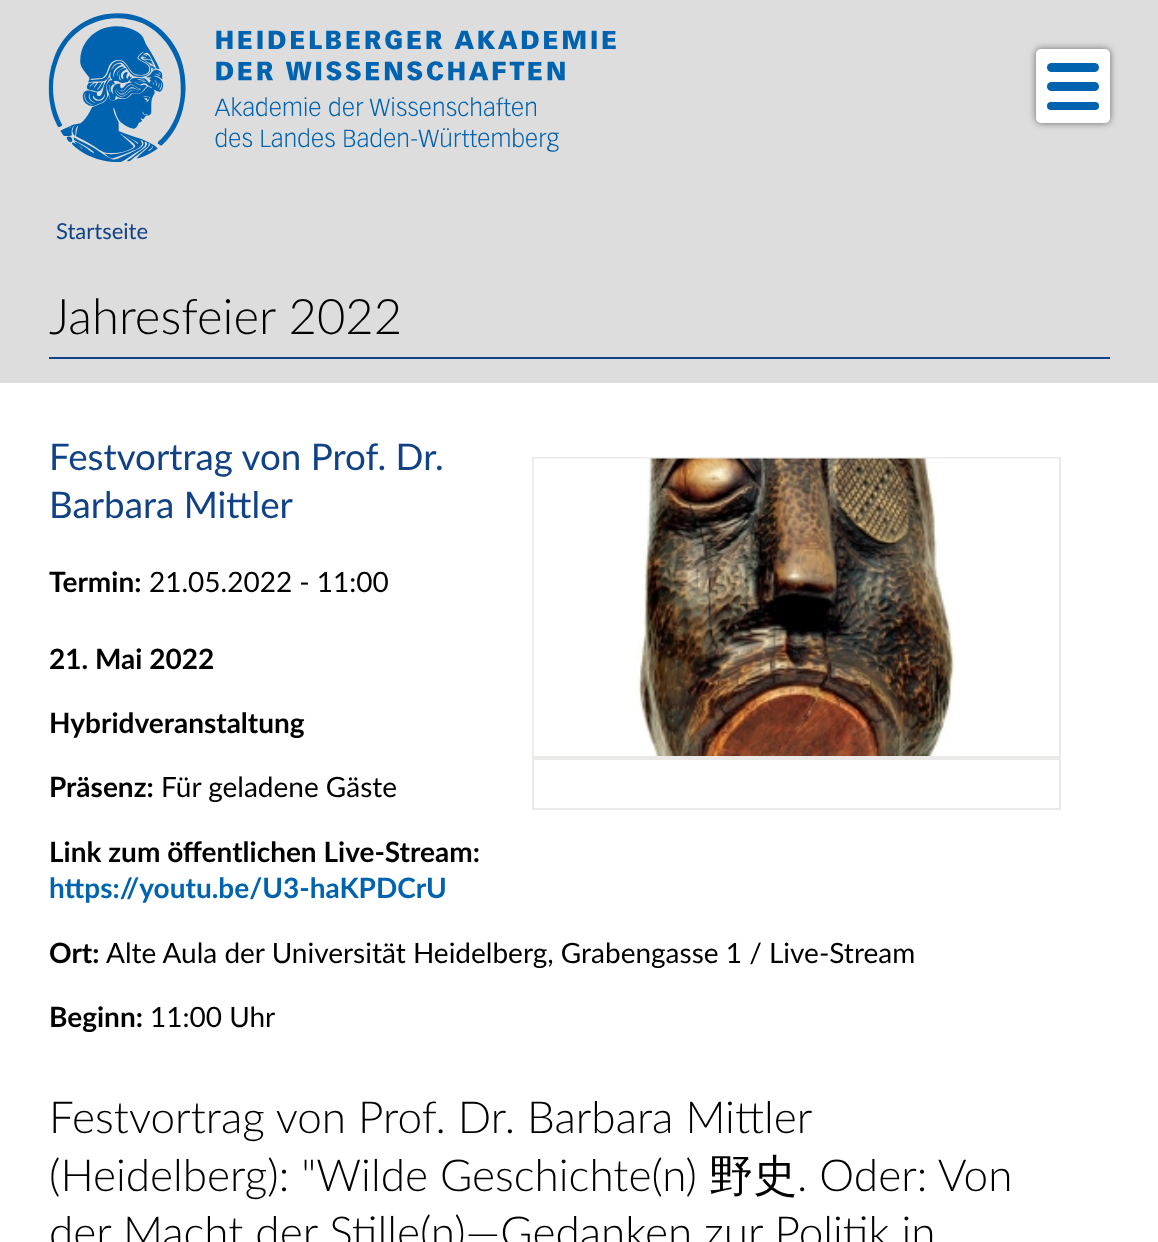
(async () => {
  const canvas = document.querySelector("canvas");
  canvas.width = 1158;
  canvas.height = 1242;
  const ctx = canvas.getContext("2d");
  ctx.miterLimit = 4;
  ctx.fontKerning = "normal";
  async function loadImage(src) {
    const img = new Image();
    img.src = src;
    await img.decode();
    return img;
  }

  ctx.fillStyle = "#dddddd";
  ctx.fillRect(0, 0, 1158, 1242);
  ctx.drawImage(await loadImage("img/1.png"), 48, 13, 568, 149);
  ctx.fillStyle = "#666666";
  ctx.filter = "blur(3.5px)";
  ctx.beginPath();
  ctx.roundRect(1036, 49, 74, 74, 5);
  ctx.fill();
  ctx.filter = "none";
  ctx.fillStyle = "#ffffff";
  ctx.beginPath();
  ctx.roundRect(1036, 49, 74, 74, 5);
  ctx.fill();
  ctx.fillStyle = "#0063af";
  ctx.beginPath();
  ctx.roundRect(1047, 63, 52, 9, 4.5);
  ctx.fill();
  ctx.beginPath();
  ctx.roundRect(1047, 82, 52, 9, 4.5);
  ctx.fill();
  ctx.beginPath();
  ctx.roundRect(1047, 102, 52, 8, 4);
  ctx.fill();
  ctx.fillStyle = "#114286";
  ctx.fillRect(49, 357, 1061, 2);
  ctx.fillStyle = "#ffffff";
  ctx.fillRect(0, 383, 1158, 859);
  ctx.strokeStyle = "#eceae8";
  ctx.lineWidth = 2;
  ctx.strokeRect(533, 458, 527, 351);
  ctx.fillStyle = "#eceae8";
  ctx.fillRect(534, 756, 525, 4);
  ctx.drawImage(await loadImage("img/2.png"), 533, 458, 526, 298);
  ctx.font = "22px Lato";
  ctx.fillStyle = "#114286";
  ctx.fillText("Startseite", 56, 239);
  ctx.font = "300 49px Lato";
  ctx.fillStyle = "#000000";
  ctx.fillText("Jahresfeier 2022", 49, 334);
  ctx.font = "36.75px Lato";
  ctx.fillStyle = "#114286";
  ctx.fillText("Festvortrag von Prof. Dr.", 49, 470);
  ctx.fillText("Barbara Mittler", 49, 518);
  ctx.font = "bold 28px Lato";
  ctx.fillStyle = "#000000";
  ctx.fillText("Termin:", 49, 592);
  ctx.font = "28px Lato";
  ctx.fillText("21.05.2022 - 11:00", 149, 592);
  ctx.font = "bold 28px Lato";
  for (const [text, x, y] of [
    ["21. Mai 2022", 49, 669],
    ["Hybridveranstaltung", 49, 733],
    ["Präsenz:", 49, 797],
  ]) {
    ctx.fillText(text, x, y);
  }
  ctx.font = "28px Lato";
  ctx.fillText("Für geladene Gäste", 161, 797);
  ctx.font = "bold 28px Lato";
  ctx.fillText("Link zum öffentlichen Live-Stream:", 49, 862);
  ctx.fillStyle = "#0063af";
  ctx.fillText("https://youtu.be/U3-haKPDCrU", 49, 898);
  ctx.fillStyle = "#000000";
  ctx.fillText("Ort:", 49, 963);
  ctx.font = "28px Lato";
  ctx.fillText("Alte Aula der Universität Heidelberg, Grabengasse 1 / Live-Stream", 106, 963);
  ctx.font = "bold 28px Lato";
  ctx.fillText("Beginn:", 49, 1027);
  ctx.font = "28px Lato";
  ctx.fillText("11:00 Uhr", 150, 1027);
  ctx.font = "300 44.1px Lato";
  ctx.fillText("Festvortrag von Prof. Dr. Barbara Mittler", 49, 1133);
  ctx.fillText("(Heidelberg): \"Wilde Geschichte(n)", 49, 1191);
  ctx.font = "500 44.1px WenQuanYi Zen Hei";
  ctx.fillText("野史", 709, 1191);
  ctx.font = "300 44.1px Lato";
  ctx.fillText(". Oder: Von", 797, 1191);
  ctx.fillText("der Macht der Stille(n)—Gedanken zur Politik in", 49, 1248);
})();
